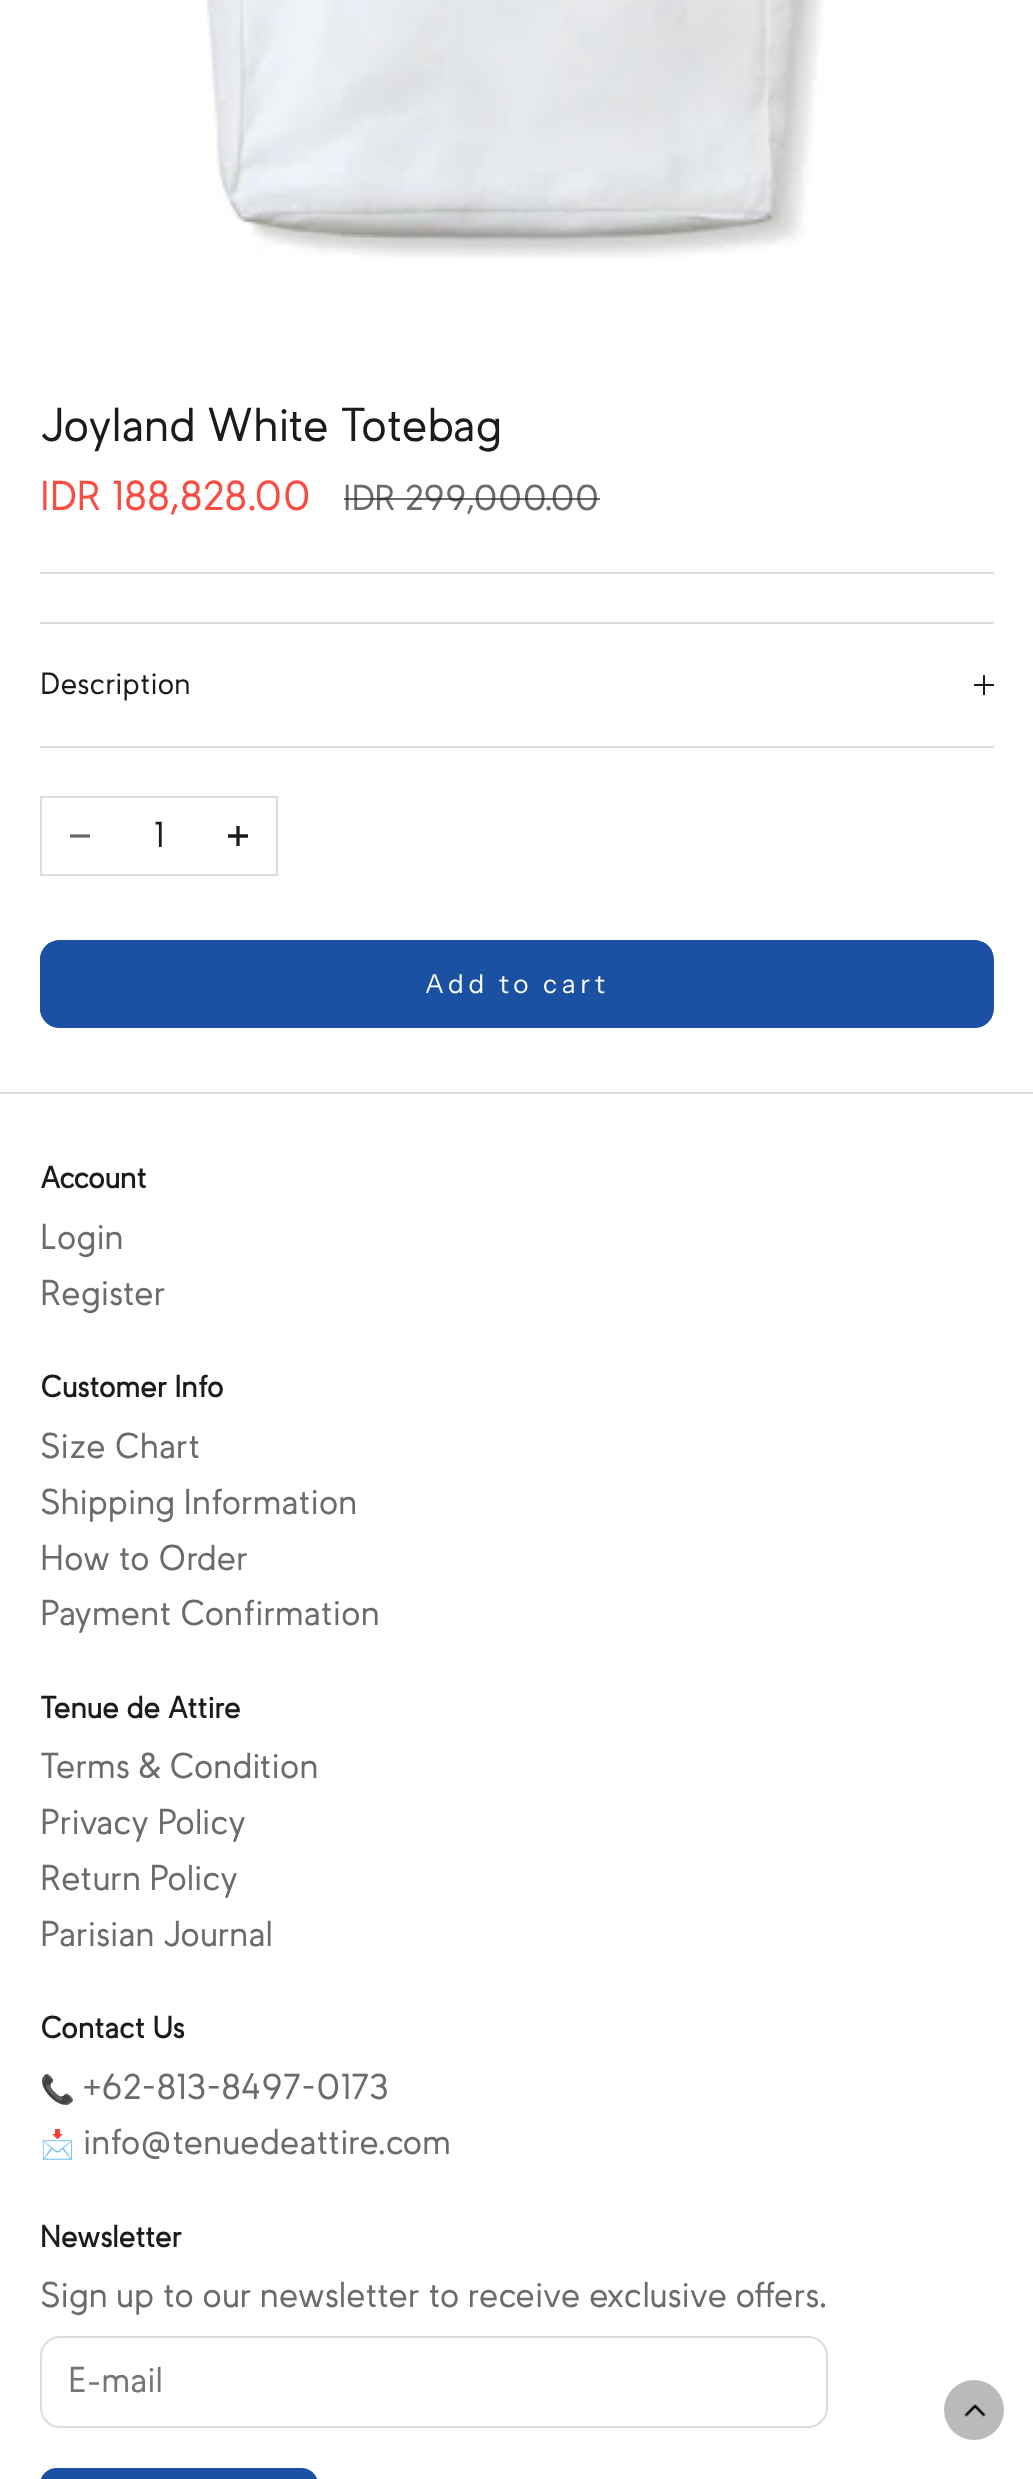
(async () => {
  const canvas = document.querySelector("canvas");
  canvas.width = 1033;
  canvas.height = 2479;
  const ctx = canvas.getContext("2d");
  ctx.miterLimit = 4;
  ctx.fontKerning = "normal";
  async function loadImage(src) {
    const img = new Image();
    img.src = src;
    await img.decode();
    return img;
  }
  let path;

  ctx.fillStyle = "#ffffff";
  ctx.fillRect(0, 0, 1033, 2479);
  ctx.drawImage(await loadImage("img/1.png"), 206, 0, 618, 259);
  for (const [x, y, w, h, color] of [
    [40, 572, 954, 2, "#dddddd"],
    [40, 622, 954, 2, "#dddddd"],
    [40, 746, 954, 2, "#dddddd"],
    [983, 675, 2, 20, "#1c1b1b"],
    [974, 684, 20, 2, "#1c1b1b"],
  ]) {
    ctx.fillStyle = color;
    ctx.fillRect(x, y, w, h);
  }
  ctx.strokeStyle = "#dddddd";
  ctx.lineWidth = 2;
  ctx.strokeRect(41, 797, 236, 78);
  path = new Path2D("M70 836H90");
  ctx.strokeStyle = "#6b6b6b";
  ctx.lineWidth = 3.3;
  ctx.stroke(path);
  path = new Path2D("M238 826V846M228 836H248");
  ctx.strokeStyle = "#1c1b1b";
  ctx.stroke(path);
  ctx.save();
  ctx.beginPath();
  ctx.roundRect(40, 940, 954, 88, 20);
  ctx.clip();
  ctx.fillStyle = "#1a51a3";
  ctx.fillRect(40, 942, 952, 84);
  ctx.restore();
  ctx.beginPath();
  ctx.roundRect(41, 941, 952, 86, 19);
  ctx.strokeStyle = "#1a51a3";
  ctx.lineWidth = 2;
  ctx.stroke();
  ctx.fillStyle = "#dddddd";
  ctx.fillRect(0, 1092, 1033, 2);
  ctx.beginPath();
  ctx.roundRect(41, 2337, 786, 90, 19);
  ctx.strokeStyle = "#dddddd";
  ctx.stroke();
  ctx.save();
  ctx.beginPath();
  ctx.roundRect(40, 2468, 278, 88, 20);
  ctx.clip();
  ctx.fillStyle = "#1a51a3";
  ctx.fillRect(42, 2470, 274, 9);
  ctx.restore();
  ctx.beginPath();
  ctx.roundRect(41, 2469, 276, 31, 19);
  ctx.strokeStyle = "#1a51a3";
  ctx.stroke();
  ctx.fillStyle = "#bababa";
  ctx.beginPath();
  ctx.arc(974, 2410, 30, 0, Math.PI * 2);
  ctx.fill();
  ctx.drawImage(await loadImage("img/2.png"), 964, 2404, 22, 13);
  ctx.font = "37.1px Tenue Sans";
  ctx.fillStyle = "#1c1b1b";
  ctx.fillText("Joyland White Totebag", 40, 441);
  ctx.font = "32.5px Tenue Sans";
  ctx.fillStyle = "#f94c43";
  ctx.fillText("IDR 188,828.00", 40, 510);
  ctx.font = "28px Tenue Sans";
  ctx.fillStyle = "#6b6b6b";
  ctx.fillText("IDR 299,000.00", 343, 510);
  ctx.fillStyle = "rgba(28, 27, 27, 0.65)";
  ctx.fillRect(344, 498, 256, 2);
  ctx.font = "24px Tenue Sans";
  ctx.fillStyle = "#1c1b1b";
  ctx.fillText("Description", 40, 694);
  ctx.font = "28px Tenue Sans";
  ctx.fillText("1", 154, 847);
  ctx.letterSpacing = "4.75px";
  ctx.font = "26px Instrument Sans";
  ctx.fillStyle = "#ffffff";
  ctx.fillText("Add to cart", 425, 993);
  ctx.letterSpacing = "0px";
  ctx.font = "bold 24px Tenue Sans";
  ctx.fillStyle = "#1c1b1b";
  ctx.fillText("Account", 40, 1188);
  ctx.font = "28px Tenue Sans";
  ctx.fillStyle = "#6b6b6b";
  ctx.fillText("Login", 40, 1249);
  ctx.fillText("Register", 40, 1305);
  ctx.font = "bold 24px Tenue Sans";
  ctx.fillStyle = "#1c1b1b";
  ctx.fillText("Customer Info", 40, 1397);
  ctx.font = "28px Tenue Sans";
  ctx.fillStyle = "#6b6b6b";
  for (const [text, x, y] of [
    ["Size Chart", 40, 1458],
    ["Shipping Information", 40, 1514],
    ["How to Order", 40, 1570],
    ["Payment Confirmation", 40, 1625],
  ]) {
    ctx.fillText(text, x, y);
  }
  ctx.font = "bold 24px Tenue Sans";
  ctx.fillStyle = "#1c1b1b";
  ctx.fillText("Tenue de Attire", 40, 1718);
  ctx.font = "28px Tenue Sans";
  ctx.fillStyle = "#6b6b6b";
  for (const [text, x, y] of [
    ["Terms & Condition", 40, 1778],
    ["Privacy Policy", 40, 1834],
    ["Return Policy", 40, 1890],
    ["Parisian Journal", 40, 1946],
  ]) {
    ctx.fillText(text, x, y);
  }
  ctx.font = "bold 24px Tenue Sans";
  ctx.fillStyle = "#1c1b1b";
  ctx.fillText("Contact Us", 40, 2038);
  ctx.font = "28px Noto Color Emoji";
  ctx.fillStyle = "#6b6b6b";
  ctx.fillText("📞", 40, 2099);
  ctx.font = "28px Tenue Sans";
  ctx.fillText("+62-813-8497-0173", 83, 2099);
  ctx.font = "28px Noto Color Emoji";
  ctx.fillText("📩", 40, 2154);
  ctx.font = "28px Tenue Sans";
  ctx.fillText("info@tenuedeattire.com", 83, 2154);
  ctx.font = "bold 24px Tenue Sans";
  ctx.fillStyle = "#1c1b1b";
  ctx.fillText("Newsletter", 40, 2247);
  ctx.font = "28px Tenue Sans";
  ctx.fillStyle = "#6b6b6b";
  ctx.fillText("Sign up to our newsletter to receive exclusive offers.", 40, 2307);
  ctx.fillStyle = "#777676";
  ctx.fillText("E-mail", 68, 2392);
})();
